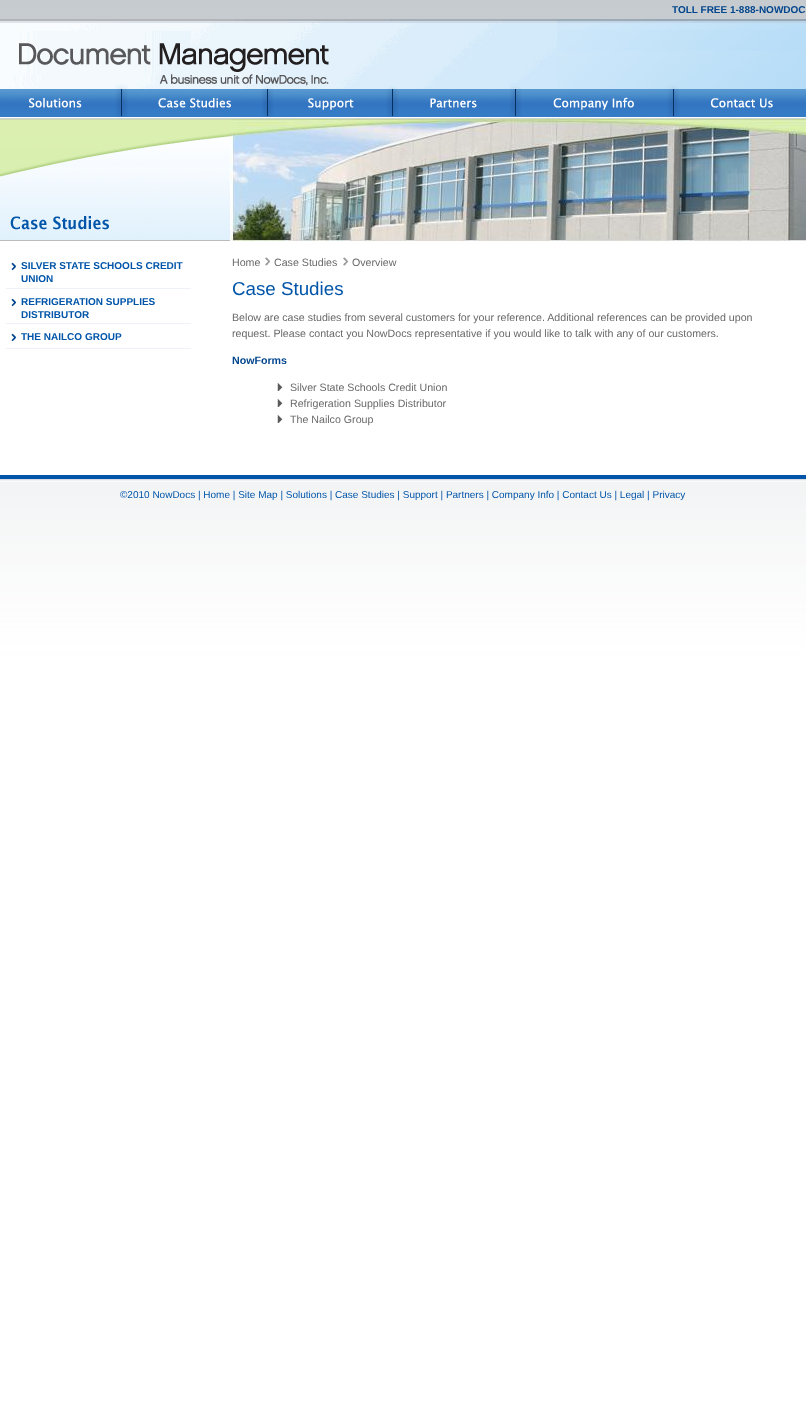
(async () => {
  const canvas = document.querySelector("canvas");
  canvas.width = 806;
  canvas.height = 1408;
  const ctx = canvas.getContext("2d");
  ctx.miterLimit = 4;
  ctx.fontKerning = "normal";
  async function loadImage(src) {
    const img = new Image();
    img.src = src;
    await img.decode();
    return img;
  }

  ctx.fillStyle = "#ffffff";
  ctx.fillRect(0, 0, 806, 1408);
  ctx.drawImage(await loadImage("img/1.png"), 0, 0, 806, 1408);
  ctx.drawImage(await loadImage("img/2.png"), 0, 19, 557, 70);
  ctx.drawImage(await loadImage("img/3.png"), 557, 19, 249, 70);
  ctx.fillRect(0, 117, 806, 1);
  ctx.drawImage(await loadImage("img/4.png"), 0, 89, 121, 28);
  ctx.drawImage(await loadImage("img/5.png"), 121, 89, 146, 28);
  ctx.drawImage(await loadImage("img/6.png"), 267, 89, 125, 28);
  ctx.drawImage(await loadImage("img/7.png"), 392, 89, 123, 28);
  ctx.drawImage(await loadImage("img/8.png"), 515, 89, 158, 28);
  ctx.drawImage(await loadImage("img/9.png"), 673, 89, 133, 28);
  ctx.drawImage(await loadImage("img/10.png"), 0, 119, 230, 85);
  ctx.drawImage(await loadImage("img/11.png"), 0, 204, 230, 37);
  ctx.drawImage(await loadImage("img/12.png"), 230, 119, 576, 122);
  ctx.fillRect(0, 241, 806, 234);
  ctx.fillStyle = "#eef2f6";
  ctx.fillRect(6, 288, 185, 1);
  ctx.drawImage(await loadImage("img/13.png"), 11, 262, 5, 9);
  ctx.fillRect(6, 323, 185, 1);
  ctx.drawImage(await loadImage("img/13.png"), 11, 298, 5, 9);
  ctx.fillRect(6, 348, 185, 1);
  ctx.drawImage(await loadImage("img/13.png"), 11, 333, 5, 9);
  ctx.drawImage(await loadImage("img/14.png"), 265, 257, 5, 9);
  ctx.drawImage(await loadImage("img/14.png"), 343, 257, 5, 9);
  ctx.drawImage(await loadImage("img/15.png"), 277, 382, 6, 9);
  ctx.drawImage(await loadImage("img/15.png"), 277, 398, 6, 9);
  ctx.drawImage(await loadImage("img/15.png"), 277, 414, 6, 9);
  ctx.drawImage(await loadImage("img/16.png"), 0, 475, 806, 7);
  ctx.font = "bold 10px Liberation Sans";
  ctx.fillStyle = "#00458d";
  ctx.fillText("TOLL FREE 1-888-NOWDOC", 672, 13);
  ctx.fillStyle = "#0055a9";
  for (const [text, x, y] of [
    ["SILVER STATE SCHOOLS CREDIT", 21, 269],
    ["UNION", 21, 282],
    ["REFRIGERATION SUPPLIES", 21, 305],
    ["DISTRIBUTOR", 21, 318],
    ["THE NAILCO GROUP", 21, 340],
  ]) {
    ctx.fillText(text, x, y);
  }
  ctx.font = "10.65px Liberation Sans";
  ctx.fillStyle = "#696969";
  for (const [text, x, y] of [
    ["Home", 232, 266],
    ["Case Studies", 274, 266],
    ["Overview", 352, 266],
  ]) {
    ctx.fillText(text, x, y);
  }
  ctx.font = "18.75px Liberation Sans";
  ctx.fillStyle = "#0055a9";
  ctx.fillText("Case Studies", 232, 295);
  ctx.font = "10.65px Liberation Sans";
  ctx.fillStyle = "#696969";
  ctx.fillText("Below are case studies from several customers for your reference. Additional references can be provided upon", 232, 321);
  ctx.fillText("request. Please contact you NowDocs representative if you would like to talk with any of our customers.", 232, 337);
  ctx.font = "bold 10.65px Liberation Sans";
  ctx.fillStyle = "#00458d";
  ctx.fillText("NowForms", 232, 364);
  ctx.font = "10.65px Liberation Sans";
  ctx.fillStyle = "#696969";
  for (const [text, x, y] of [
    ["Silver State Schools Credit Union", 290, 391],
    ["Refrigeration Supplies Distributor", 290, 407],
    ["The Nailco Group", 290, 423],
  ]) {
    ctx.fillText(text, x, y);
  }
  ctx.font = "10px Liberation Sans";
  ctx.fillStyle = "#0055a9";
  ctx.fillText("©2010 NowDocs | Home | Site Map | Solutions | Case Studies | Support | Partners | Company Info | Contact Us | Legal | Privacy", 120, 498);
})();
